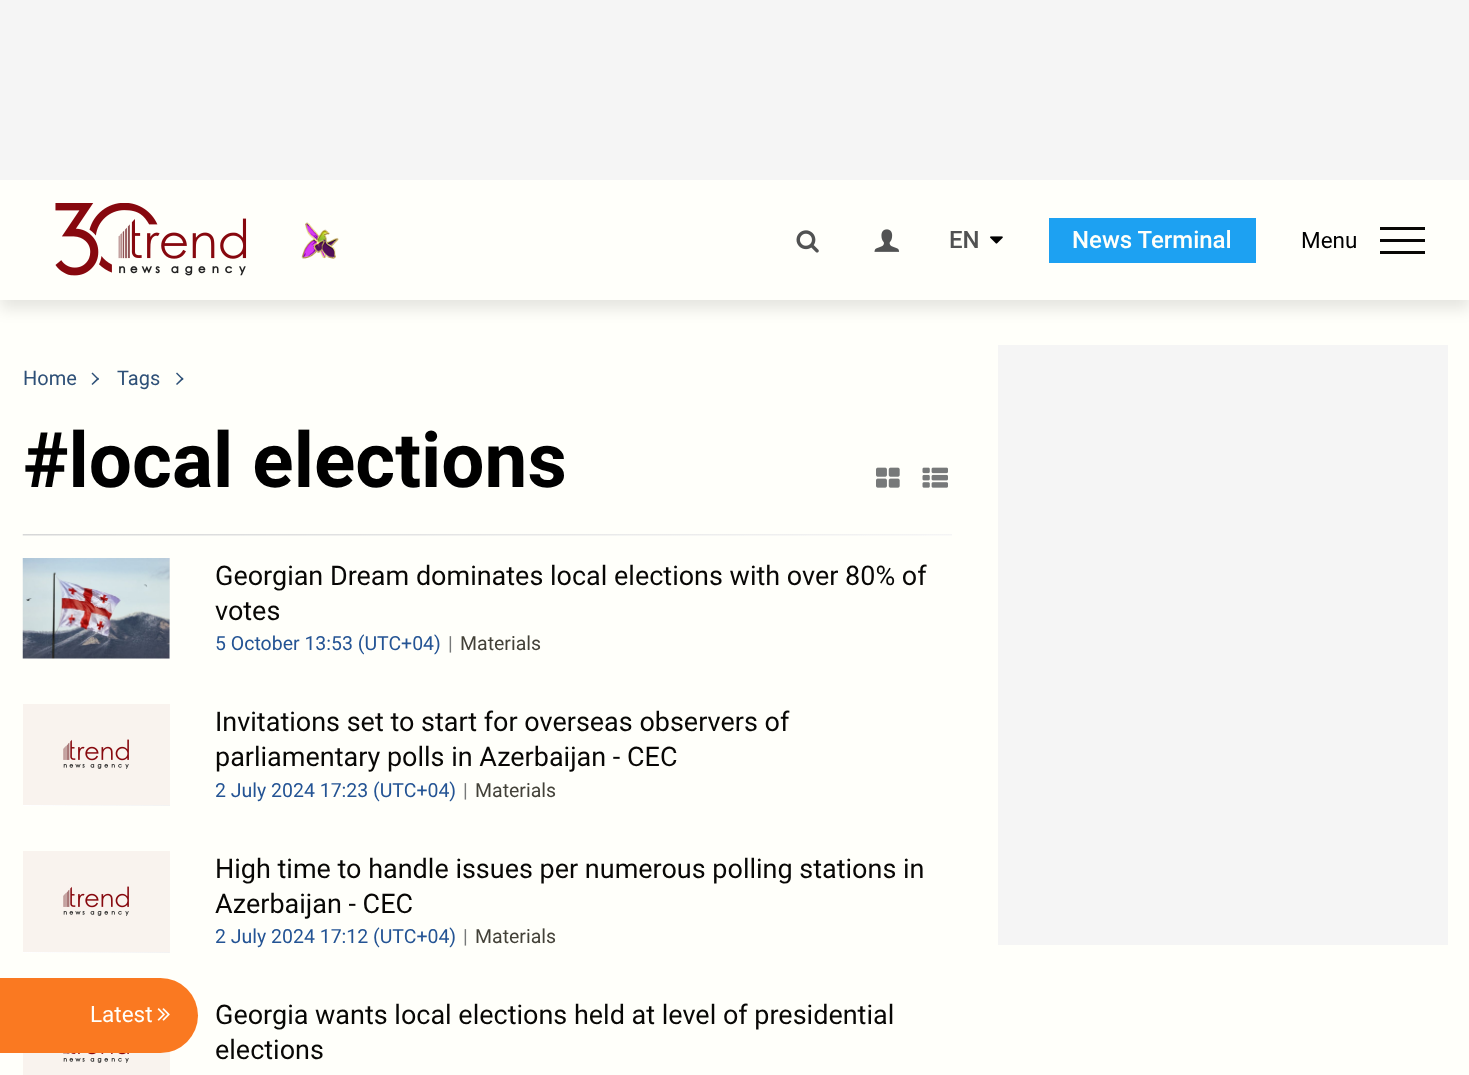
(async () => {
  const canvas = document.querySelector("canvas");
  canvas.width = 1469;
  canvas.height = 1075;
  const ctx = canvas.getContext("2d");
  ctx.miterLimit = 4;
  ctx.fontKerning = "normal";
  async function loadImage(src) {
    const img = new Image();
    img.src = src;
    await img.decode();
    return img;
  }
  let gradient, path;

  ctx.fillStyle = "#fffffa";
  ctx.fillRect(0, 0, 1469, 1075);
  ctx.fillStyle = "rgba(0, 0, 0, 0.1)";
  ctx.filter = "blur(7.5px)";
  ctx.beginPath();
  ctx.rect(0, 189, 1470, 120);
  ctx.fill();
  ctx.filter = "none";
  ctx.fillStyle = "#f5f5f5";
  ctx.fillRect(0, 0, 1469, 180);
  ctx.fillStyle = "#fffffa";
  ctx.fillRect(0, 180, 1469, 120);
  ctx.drawImage(await loadImage("img/1.png"), 55, 203, 192, 73);
  ctx.drawImage(await loadImage("img/2.png"), 301, 222, 38, 37);
  ctx.drawImage(await loadImage("img/3.png"), 796, 230, 23, 23);
  ctx.drawImage(await loadImage("img/4.png"), 874, 229, 26, 23);
  ctx.drawImage(await loadImage("img/5.png"), 990, 236, 13, 8);
  for (const [x, y, w, h, color] of [
    [1049, 218, 207, 45, "#1da1f2"],
    [1380, 227, 45, 3, "#080705"],
    [1380, 239, 45, 3, "#080705"],
    [1380, 251, 45, 3, "#080705"],
  ]) {
    ctx.fillStyle = color;
    ctx.fillRect(x, y, w, h);
  }
  ctx.fillStyle = "#2e5077";
  path = new Path2D("M92.5 372.5L99 379L98 380L91.5 373.5Z");
  ctx.fill(path);
  path = new Path2D("M98 377.5L99 379L92.5 385L91.5 384Z");
  ctx.fill(path);
  path = new Path2D("M177 372.5L183.5 379L182.5 380L176 373.5Z");
  ctx.fill(path);
  path = new Path2D("M182.5 377.5L183.5 379L177 385L176 384Z");
  ctx.fill(path);
  ctx.drawImage(await loadImage("img/6.png"), 22, 534, 930, 2);
  ctx.drawImage(await loadImage("img/7.png"), 876, 467, 24, 21);
  ctx.drawImage(await loadImage("img/8.png"), 922, 467, 26, 21);
  gradient = ctx.createLinearGradient(34, 670, 158, 546);
  gradient.addColorStop(0, "#ffffff");
  gradient.addColorStop(0.5, "#f5f5f5");
  gradient.addColorStop(1, "#e8e8e8");
  ctx.fillStyle = gradient;
  ctx.fillRect(23, 558, 147, 101);
  ctx.drawImage(await loadImage("img/9.png"), 22, 558, 148, 101);
  gradient = ctx.createLinearGradient(34, 817, 158, 692);
  gradient.addColorStop(0, "#ffffff");
  gradient.addColorStop(0.5, "#f5f5f5");
  gradient.addColorStop(1, "#e8e8e8");
  ctx.fillStyle = gradient;
  ctx.fillRect(23, 805, 147, 1);
  ctx.drawImage(await loadImage("img/10.png"), 23, 704, 147, 101);
  gradient = ctx.createLinearGradient(34, 964, 158, 839);
  gradient.addColorStop(0, "#ffffff");
  gradient.addColorStop(0.5, "#f5f5f5");
  gradient.addColorStop(1, "#e8e8e8");
  ctx.fillStyle = gradient;
  ctx.fillRect(23, 952, 147, 1);
  ctx.drawImage(await loadImage("img/10.png"), 23, 851, 147, 101);
  ctx.drawImage(await loadImage("img/11.png"), 23, 1051, 147, 24);
  ctx.fillStyle = "#f5f5f5";
  ctx.fillRect(998, 345, 450, 600);
  ctx.fillStyle = "#fa7921";
  ctx.beginPath();
  ctx.roundRect(0, 978, 198, 75, [0, 37.5, 37.5, 0]);
  ctx.fill();
  ctx.drawImage(await loadImage("img/12.png"), 157, 1008, 13, 13);
  ctx.font = "500 24px Roboto";
  ctx.fillStyle = "#515252";
  ctx.fillText("EN", 949, 248);
  ctx.fillStyle = "#fffffa";
  ctx.fillText("News Terminal", 1072, 248);
  ctx.font = "22.5px Roboto";
  ctx.fillStyle = "#000000";
  ctx.fillText("Menu", 1301, 248);
  ctx.font = "20px Roboto";
  ctx.fillStyle = "#2e5077";
  ctx.fillText("Home", 23, 385);
  ctx.fillText("Tags", 117, 385);
  ctx.font = "bold 76.5px Roboto";
  ctx.fillStyle = "#000000";
  ctx.fillText("#local elections", 23, 487);
  ctx.font = "27px Roboto";
  ctx.fillStyle = "#080705";
  ctx.fillText("Georgian Dream dominates local elections with over 80% of", 215, 585);
  ctx.fillText("votes", 215, 620);
  ctx.font = "19.5px Roboto";
  ctx.fillStyle = "#245494";
  ctx.fillText("5 October 13:53 (UTC+04)", 215, 650);
  ctx.fillStyle = "#777979";
  ctx.fillText("|", 448, 650);
  ctx.fillStyle = "#434138";
  ctx.fillText("Materials", 460, 650);
  ctx.font = "27px Roboto";
  ctx.fillStyle = "#080705";
  ctx.fillText("Invitations set to start for overseas observers of", 215, 731);
  ctx.fillText("parliamentary polls in Azerbaijan - CEC", 215, 766);
  ctx.font = "19.5px Roboto";
  ctx.fillStyle = "#245494";
  ctx.fillText("2 July 2024 17:23 (UTC+04)", 215, 797);
  ctx.fillStyle = "#777979";
  ctx.fillText("|", 463, 797);
  ctx.fillStyle = "#434138";
  ctx.fillText("Materials", 475, 797);
  ctx.font = "27px Roboto";
  ctx.fillStyle = "#080705";
  ctx.fillText("High time to handle issues per numerous polling stations in", 215, 878);
  ctx.fillText("Azerbaijan - CEC", 215, 913);
  ctx.font = "19.5px Roboto";
  ctx.fillStyle = "#245494";
  ctx.fillText("2 July 2024 17:12 (UTC+04)", 215, 943);
  ctx.fillStyle = "#777979";
  ctx.fillText("|", 463, 943);
  ctx.fillStyle = "#434138";
  ctx.fillText("Materials", 475, 943);
  ctx.font = "27px Roboto";
  ctx.fillStyle = "#080705";
  ctx.fillText("Georgia wants local elections held at level of presidential", 215, 1024);
  ctx.fillText("elections", 215, 1059);
  ctx.font = "22.5px Roboto";
  ctx.fillStyle = "#fffffa";
  ctx.fillText("Latest", 90, 1022);
})();
